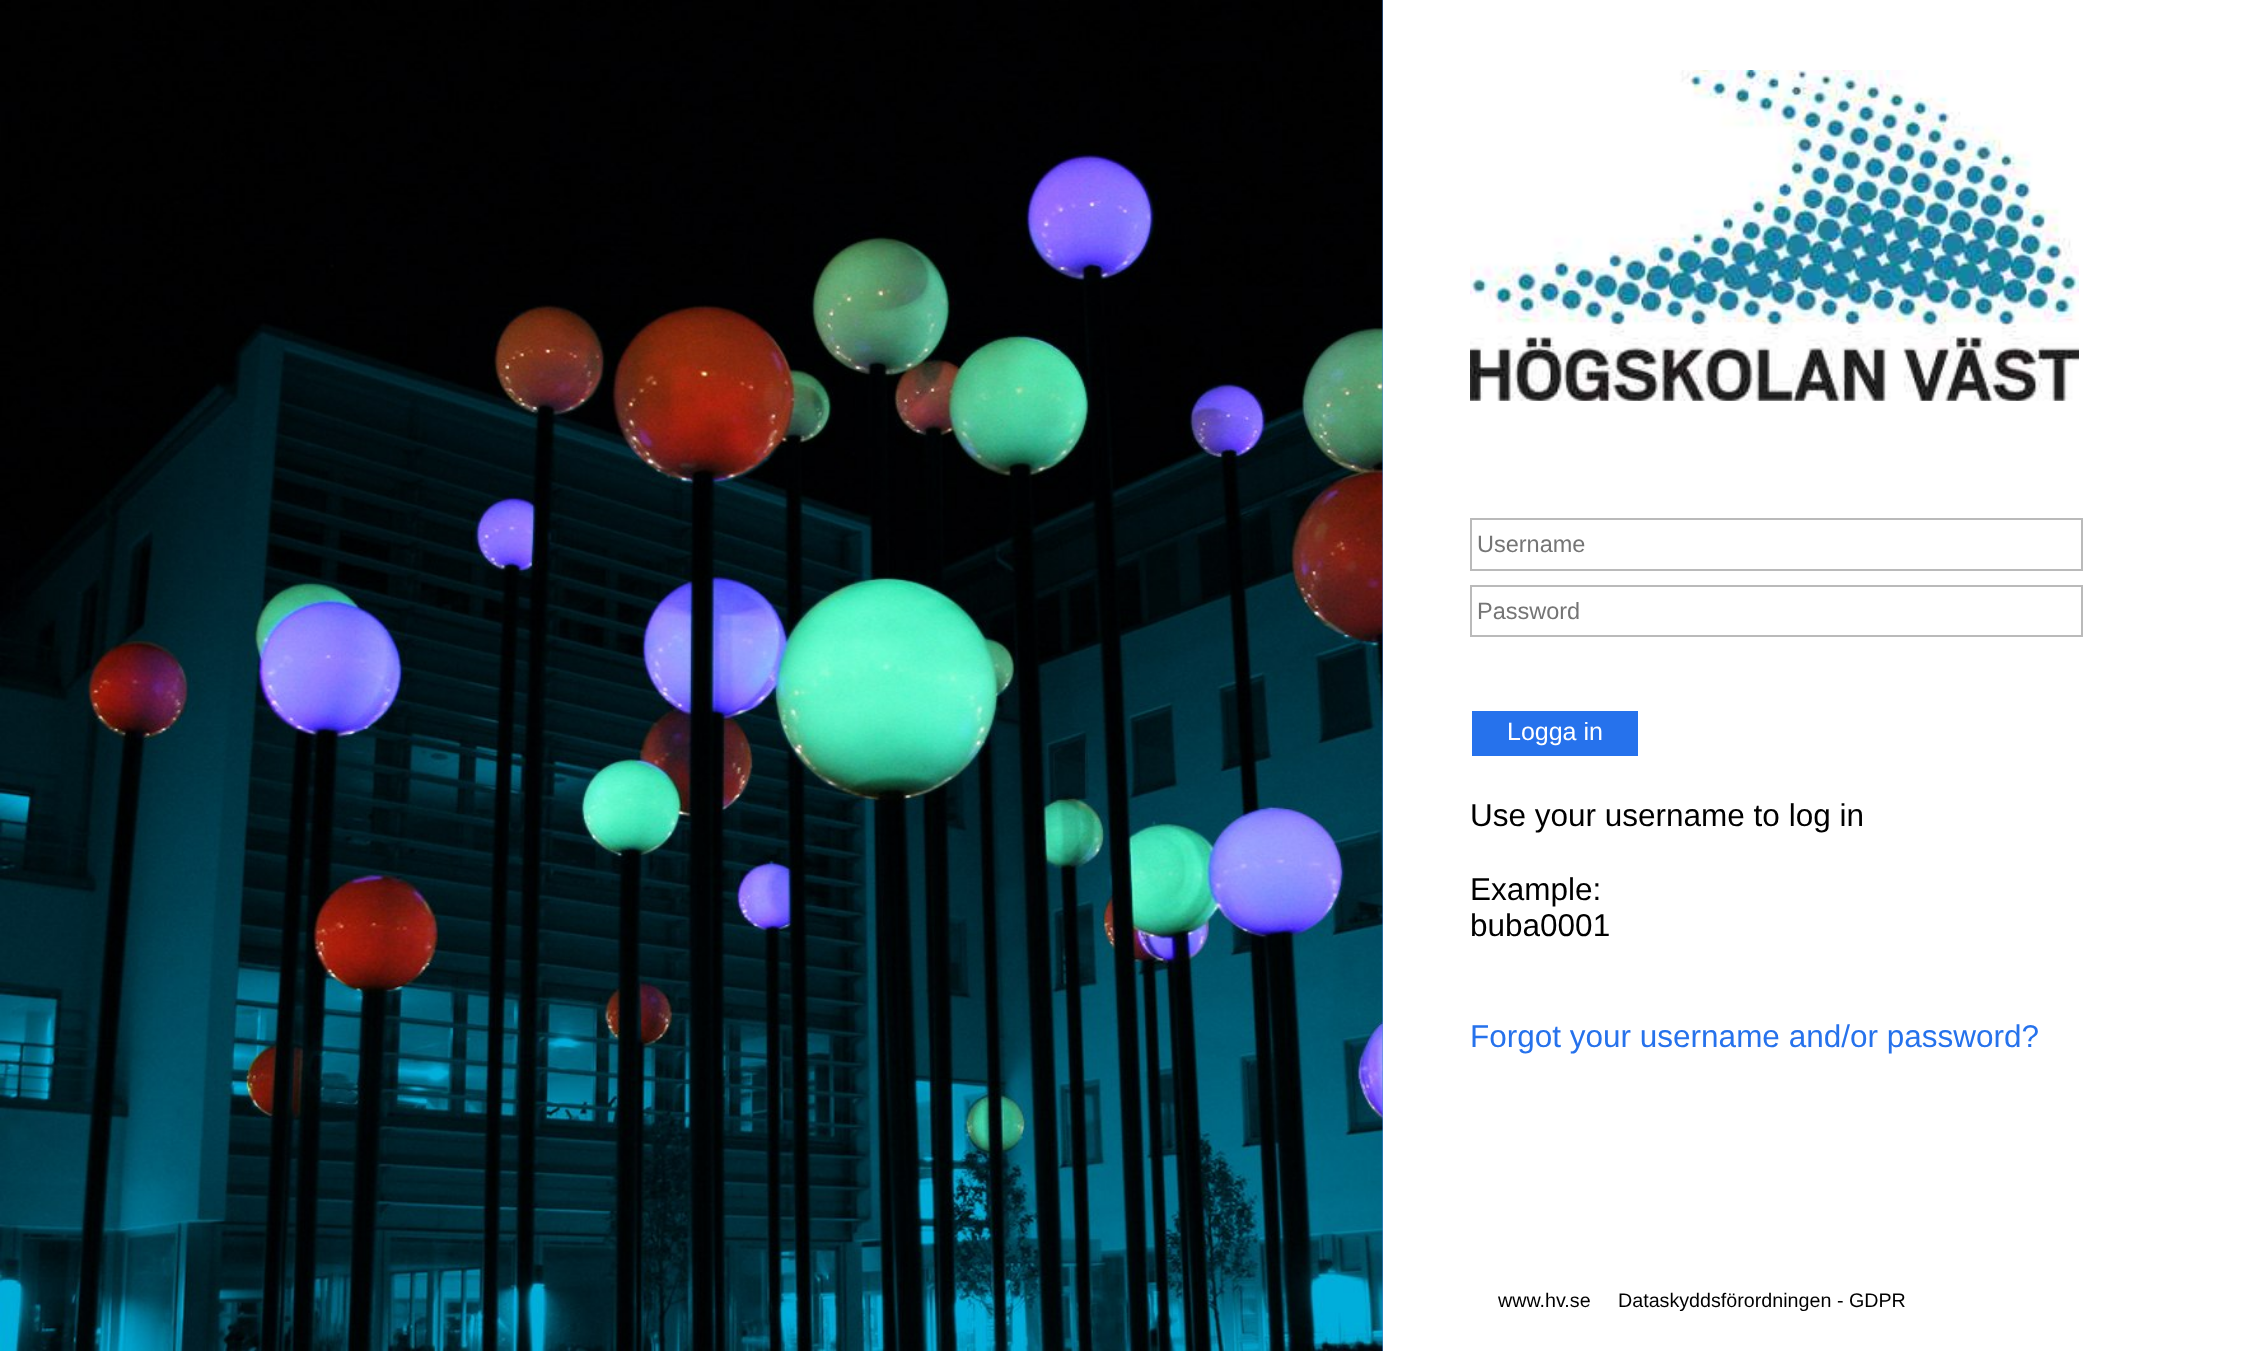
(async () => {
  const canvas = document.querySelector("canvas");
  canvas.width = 2256;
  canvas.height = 1351;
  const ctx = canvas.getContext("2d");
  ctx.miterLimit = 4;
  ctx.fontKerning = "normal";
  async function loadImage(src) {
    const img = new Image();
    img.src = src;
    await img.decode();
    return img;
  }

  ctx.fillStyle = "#4488dd";
  ctx.fillRect(0, 0, 2256, 1351);
  ctx.drawImage(await loadImage("img/1.png"), 0, 0, 1383, 1351);
  ctx.fillStyle = "#ffffff";
  ctx.fillRect(1383, 0, 873, 1351);
  ctx.drawImage(await loadImage("img/2.png"), 1470, 70, 609, 331);
  ctx.strokeStyle = "#bababa";
  ctx.lineWidth = 2;
  ctx.strokeRect(1471, 519, 611, 51);
  ctx.strokeRect(1471, 586, 611, 50);
  ctx.fillStyle = "#2672ec";
  ctx.fillRect(1472, 711, 166, 45);
  ctx.font = "23.5px Liberation Sans";
  ctx.fillStyle = "#757575";
  ctx.fillText("Username", 1477, 552);
  ctx.fillText("Password", 1477, 619);
  ctx.font = "25px Liberation Sans";
  ctx.fillStyle = "#ffffff";
  ctx.fillText("Logga in", 1507, 740);
  ctx.font = "31.5px Liberation Sans";
  ctx.fillStyle = "#000000";
  for (const [text, x, y] of [
    ["Use your username to log in", 1470, 826],
    ["Example:", 1470, 900],
    ["buba0001", 1470, 936],
  ]) {
    ctx.fillText(text, x, y);
  }
  ctx.fillStyle = "#2672ec";
  ctx.fillText("Forgot your username and/or password?", 1470, 1047);
  ctx.font = "19.7px Liberation Sans";
  ctx.fillStyle = "#000000";
  ctx.fillText("www.hv.se", 1498, 1307);
  ctx.fillText("Dataskyddsförordningen - GDPR", 1618, 1307);
})();
